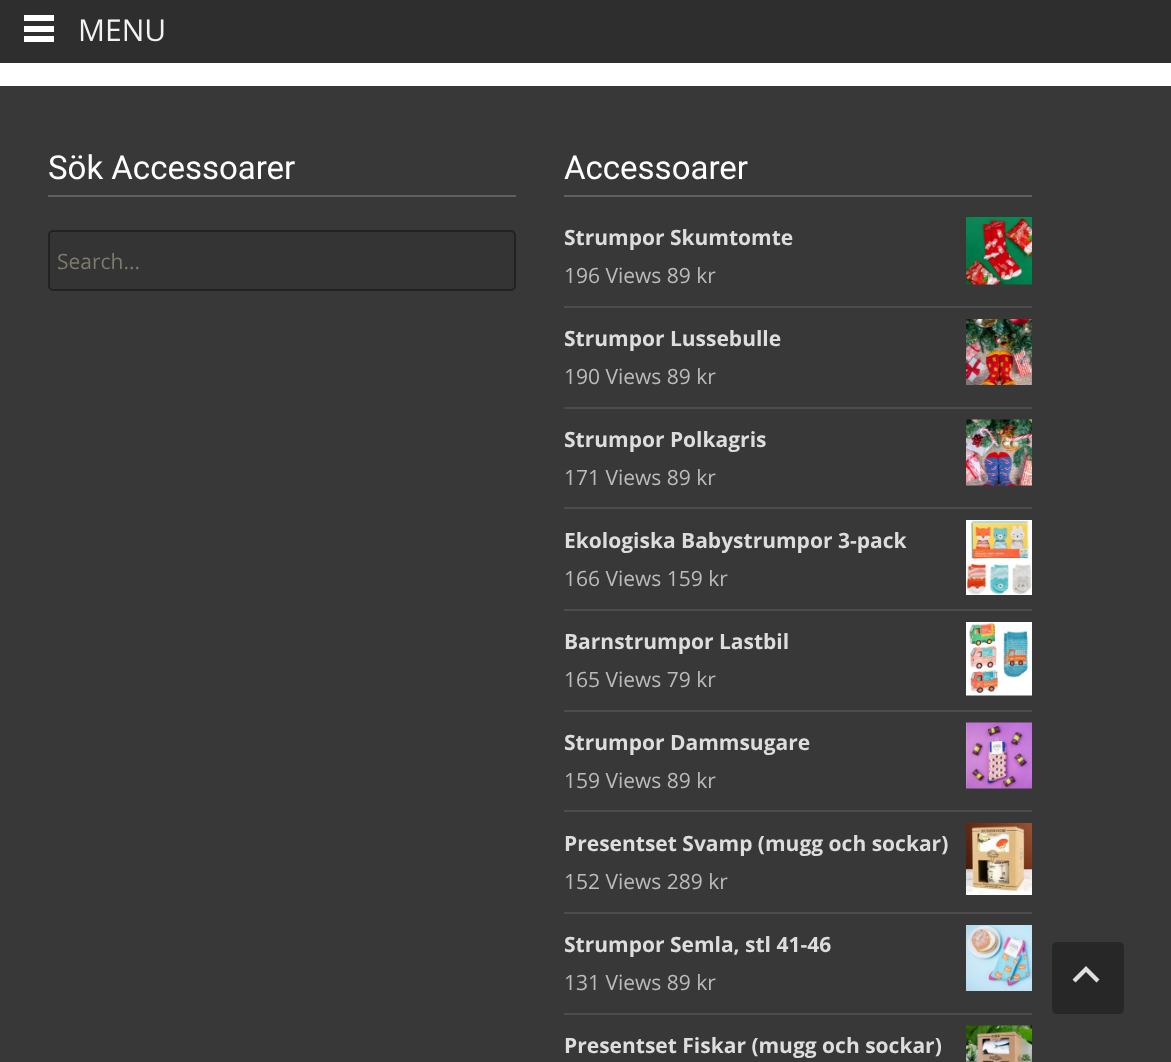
(async () => {
  const canvas = document.querySelector("canvas");
  canvas.width = 1171;
  canvas.height = 1062;
  const ctx = canvas.getContext("2d");
  ctx.miterLimit = 4;
  ctx.fontKerning = "normal";
  async function loadImage(src) {
    const img = new Image();
    img.src = src;
    await img.decode();
    return img;
  }
  let path;

  ctx.fillStyle = "#ffffff";
  ctx.fillRect(0, 0, 1171, 1062);
  for (const [x, y, w, h, color] of [
    [0, 0, 1171, 63, "#2e2e2e"],
    [24, 15, 30, 6, "#ffffff"],
    [24, 26, 30, 6, "#ffffff"],
    [24, 36, 30, 6, "#ffffff"],
    [0, 86, 1171, 976, "#383838"],
    [48, 195, 468, 2, "#606060"],
  ]) {
    ctx.fillStyle = color;
    ctx.fillRect(x, y, w, h);
  }
  ctx.fillStyle = "#343434";
  ctx.beginPath();
  ctx.roundRect(49, 231, 466, 59, 4);
  ctx.fill();
  ctx.strokeStyle = "#222222";
  ctx.lineWidth = 2;
  ctx.stroke();
  ctx.fillStyle = "#606060";
  ctx.fillRect(564, 195, 468, 2);
  ctx.fillStyle = "#4c4c4c";
  ctx.fillRect(564, 306, 468, 2);
  ctx.drawImage(await loadImage("img/1.png"), 966, 217, 66, 68);
  ctx.fillRect(564, 407, 468, 2);
  ctx.drawImage(await loadImage("img/2.png"), 966, 319, 66, 66);
  ctx.fillRect(564, 507, 468, 2);
  ctx.drawImage(await loadImage("img/3.png"), 966, 419, 66, 67);
  ctx.fillRect(564, 609, 468, 2);
  ctx.drawImage(await loadImage("img/4.png"), 966, 520, 66, 75);
  ctx.fillRect(564, 710, 468, 2);
  ctx.drawImage(await loadImage("img/5.png"), 966, 622, 66, 74);
  ctx.fillRect(564, 810, 468, 2);
  ctx.drawImage(await loadImage("img/6.png"), 966, 722, 66, 67);
  ctx.fillRect(564, 912, 468, 2);
  ctx.drawImage(await loadImage("img/7.png"), 966, 823, 66, 72);
  ctx.fillRect(564, 1013, 468, 2);
  ctx.drawImage(await loadImage("img/8.png"), 966, 925, 66, 66);
  ctx.drawImage(await loadImage("img/9.png"), 966, 1025, 66, 37);
  ctx.fillStyle = "#272727";
  ctx.beginPath();
  ctx.roundRect(1052, 942, 72, 72, 5);
  ctx.fill();
  ctx.fillStyle = "#dfdfdf";
  path = new Path2D("M1072.5 979.5L1086 966L1099.5 979.5L1096.5 982.5L1086 972L1075.5 982.5Z");
  ctx.fill(path);
  ctx.font = "30px Open Sans";
  ctx.fillStyle = "#f2f2f2";
  ctx.fillText("MENU", 78, 41);
  ctx.font = "33px Roboto";
  ctx.fillStyle = "#ffffff";
  ctx.fillText("Sök Accessoarer", 48, 179);
  ctx.font = "21px Open Sans";
  ctx.fillStyle = "#7d7b6d";
  ctx.fillText("Search...", 57, 269);
  ctx.font = "33px Roboto";
  ctx.fillStyle = "#ffffff";
  ctx.fillText("Accessoarer", 564, 179);
  ctx.font = "bold 21px Open Sans";
  ctx.fillStyle = "#dddddd";
  ctx.fillText("Strumpor Skumtomte", 564, 245);
  ctx.font = "21px Open Sans";
  ctx.fillStyle = "#bbbbbb";
  ctx.fillText("196 Views 89 kr", 564, 283);
  ctx.font = "bold 21px Open Sans";
  ctx.fillStyle = "#dddddd";
  ctx.fillText("Strumpor Lussebulle", 564, 346);
  ctx.font = "21px Open Sans";
  ctx.fillStyle = "#bbbbbb";
  ctx.fillText("190 Views 89 kr", 564, 384);
  ctx.font = "bold 21px Open Sans";
  ctx.fillStyle = "#dddddd";
  ctx.fillText("Strumpor Polkagris", 564, 447);
  ctx.font = "21px Open Sans";
  ctx.fillStyle = "#bbbbbb";
  ctx.fillText("171 Views 89 kr", 564, 485);
  ctx.font = "bold 21px Open Sans";
  ctx.fillStyle = "#dddddd";
  ctx.fillText("Ekologiska Babystrumpor 3-pack", 564, 548);
  ctx.font = "21px Open Sans";
  ctx.fillStyle = "#bbbbbb";
  ctx.fillText("166 Views 159 kr", 564, 586);
  ctx.font = "bold 21px Open Sans";
  ctx.fillStyle = "#dddddd";
  ctx.fillText("Barnstrumpor Lastbil", 564, 649);
  ctx.font = "21px Open Sans";
  ctx.fillStyle = "#bbbbbb";
  ctx.fillText("165 Views 79 kr", 564, 687);
  ctx.font = "bold 21px Open Sans";
  ctx.fillStyle = "#dddddd";
  ctx.fillText("Strumpor Dammsugare", 564, 750);
  ctx.font = "21px Open Sans";
  ctx.fillStyle = "#bbbbbb";
  ctx.fillText("159 Views 89 kr", 564, 788);
  ctx.font = "bold 21px Open Sans";
  ctx.fillStyle = "#dddddd";
  ctx.fillText("Presentset Svamp (mugg och sockar)", 564, 851);
  ctx.font = "21px Open Sans";
  ctx.fillStyle = "#bbbbbb";
  ctx.fillText("152 Views 289 kr", 564, 889);
  ctx.font = "bold 21px Open Sans";
  ctx.fillStyle = "#dddddd";
  ctx.fillText("Strumpor Semla, stl 41-46", 564, 952);
  ctx.font = "21px Open Sans";
  ctx.fillStyle = "#bbbbbb";
  ctx.fillText("131 Views 89 kr", 564, 990);
  ctx.font = "bold 21px Open Sans";
  ctx.fillStyle = "#dddddd";
  ctx.fillText("Presentset Fiskar (mugg och sockar)", 564, 1053);
})();
